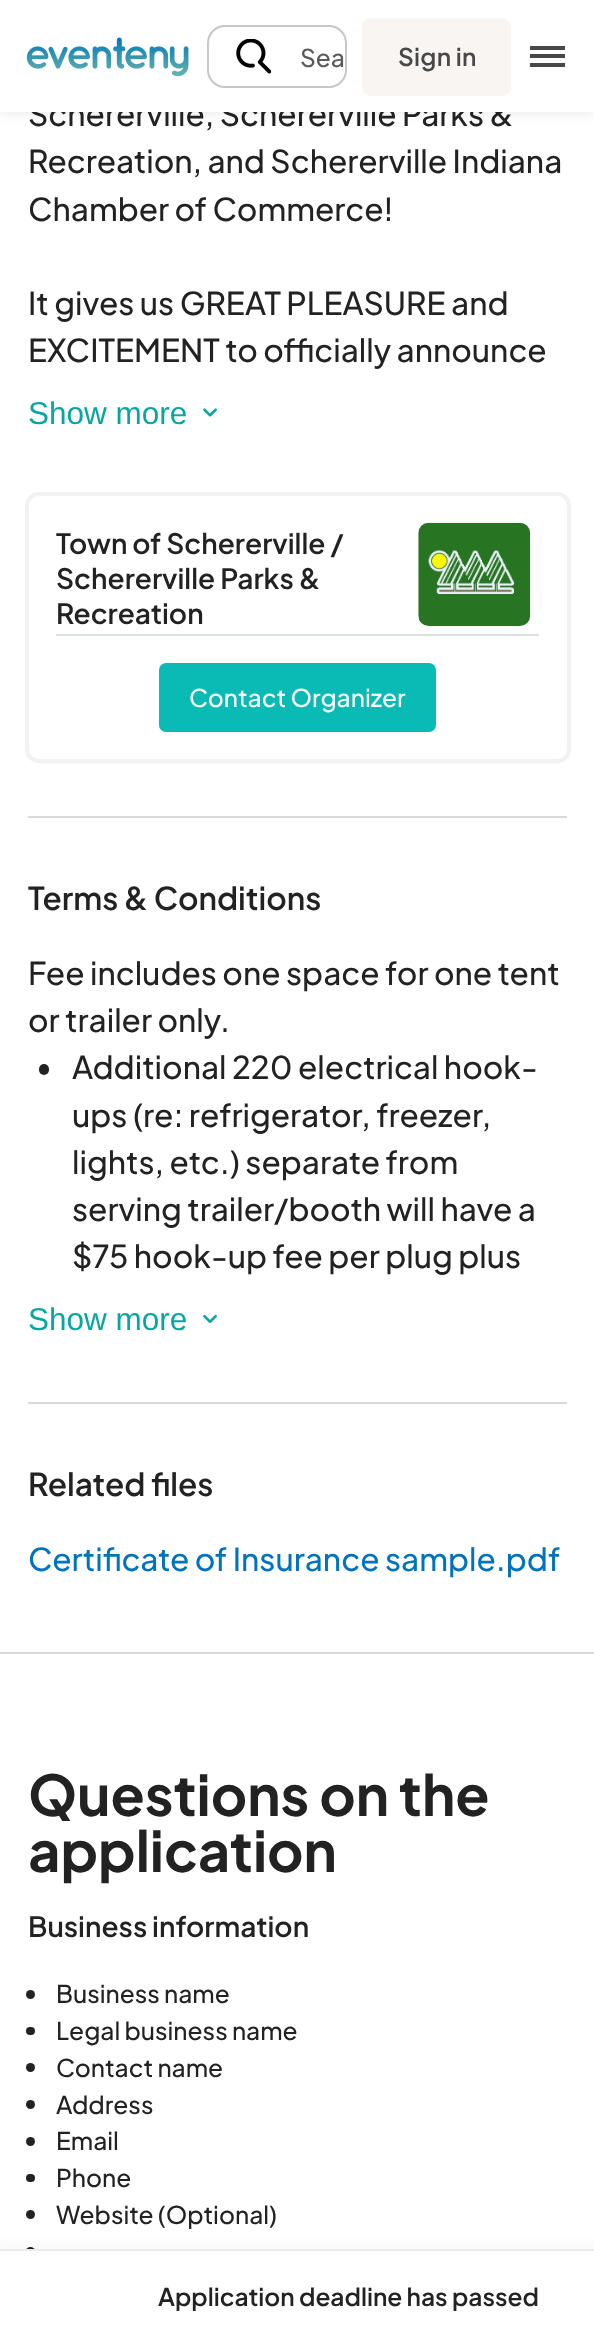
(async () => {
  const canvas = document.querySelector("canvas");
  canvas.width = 594;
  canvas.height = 2340;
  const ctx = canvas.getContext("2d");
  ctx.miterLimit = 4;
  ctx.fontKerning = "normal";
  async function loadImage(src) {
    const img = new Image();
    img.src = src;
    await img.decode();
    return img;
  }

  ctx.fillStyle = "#ffffff";
  ctx.fillRect(0, 0, 594, 2340);
  ctx.fillStyle = "rgba(0, 0, 0, 0.1)";
  ctx.filter = "blur(7px)";
  ctx.beginPath();
  ctx.rect(0, 0, 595, 112);
  ctx.fill();
  ctx.filter = "none";
  ctx.drawImage(await loadImage("img/3.png"), 203, 408, 14, 9);
  ctx.beginPath();
  ctx.roundRect(27, 494, 542, 267, 12);
  ctx.strokeStyle = "#f2f2f2";
  ctx.lineWidth = 4;
  ctx.stroke();
  ctx.drawImage(await loadImage("img/4.png"), 418, 522, 113, 104);
  ctx.fillStyle = "#dce0e0";
  ctx.fillRect(56, 634, 483, 2);
  ctx.fillStyle = "#0abab5";
  ctx.beginPath();
  ctx.roundRect(160, 664, 275, 67, 6);
  ctx.fill();
  ctx.strokeStyle = "#0abab5";
  ctx.lineWidth = 2;
  ctx.stroke();
  ctx.fillStyle = "#d9d9d9";
  ctx.fillRect(28, 816, 539, 2);
  ctx.fillStyle = "#222222";
  ctx.beginPath();
  ctx.roundRect(39, 1064, 10, 11, 5);
  ctx.fill();
  ctx.drawImage(await loadImage("img/5.png"), 203, 1314, 14, 10);
  ctx.fillStyle = "#d9d9d9";
  ctx.fillRect(28, 1402, 539, 2);
  ctx.fillRect(0, 1652, 594, 2);
  ctx.fillStyle = "#222222";
  ctx.beginPath();
  ctx.arc(30.5, 1994.5, 4.5, 0, Math.PI * 2);
  ctx.fill();
  ctx.beginPath();
  ctx.roundRect(26, 2027, 9, 8, 4);
  ctx.fill();
  ctx.beginPath();
  ctx.arc(30.5, 2067.5, 4.5, 0, Math.PI * 2);
  ctx.fill();
  ctx.beginPath();
  ctx.arc(30.5, 2104.5, 4.5, 0, Math.PI * 2);
  ctx.fill();
  ctx.beginPath();
  ctx.arc(30.5, 2141.5, 4.5, 0, Math.PI * 2);
  ctx.fill();
  ctx.beginPath();
  ctx.roundRect(26, 2174, 9, 8, 4);
  ctx.fill();
  ctx.beginPath();
  ctx.arc(30.5, 2214.5, 4.5, 0, Math.PI * 2);
  ctx.fill();
  ctx.beginPath();
  ctx.arc(30.5, 2251.5, 4.5, 0, Math.PI * 2);
  ctx.fill();
  ctx.fillStyle = "rgba(0, 0, 0, 0.05)";
  ctx.filter = "blur(8px)";
  ctx.beginPath();
  ctx.rect(-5, 2249, 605, 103);
  ctx.fill();
  ctx.filter = "none";
  ctx.fillStyle = "#ffffff";
  ctx.fillRect(0, 2251, 594, 89);
  ctx.fillStyle = "#ebebeb";
  ctx.fillRect(0, 2249, 594, 2);
  ctx.font = "500 31.5px Plus Jakarta Sans";
  ctx.fillStyle = "#222222";
  ctx.fillText("Schererville, Schererville Parks &", 28, 126);
  for (const [x, y, w, h, color] of [
    [0, 0, 594, 112, "#ffffff"],
    [530, 46, 35, 4, "#484848"],
    [530, 63, 35, 4, "#484848"],
    [530, 54, 35, 4, "#484848"],
  ]) {
    ctx.fillStyle = color;
    ctx.fillRect(x, y, w, h);
  }
  ctx.fillStyle = "#f8f5f2";
  ctx.beginPath();
  ctx.roundRect(362, 18, 149, 78, 9);
  ctx.fill();
  ctx.letterSpacing = "0.25px";
  ctx.font = "600 24.5px Plus Jakarta Sans";
  ctx.fillStyle = "#484848";
  ctx.fillText("Sign in", 398, 66);
  ctx.beginPath();
  ctx.roundRect(208, 26, 138, 61, 17);
  ctx.strokeStyle = "#c7c7c7";
  ctx.stroke();
  ctx.letterSpacing = "0px";
  ctx.font = "500 24.5px Plus Jakarta Sans";
  ctx.fillStyle = "#595959";
  ctx.fillText("Sea", 300, 67);
  ctx.drawImage(await loadImage("img/2.png"), 236, 39, 35, 35);
  ctx.drawImage(await loadImage("img/1.png"), 26, 37, 163, 40);
  ctx.font = "500 31.5px Plus Jakarta Sans";
  ctx.fillStyle = "#222222";
  for (const [text, x, y] of [
    ["Recreation, and Schererville Indiana", 28, 173],
    ["Chamber of Commerce!", 28, 221],
    ["It gives us GREAT PLEASURE and", 28, 315],
    ["EXCITEMENT to officially announce", 28, 362],
  ]) {
    ctx.fillText(text, x, y);
  }
  ctx.font = "31.5px Liberation Sans";
  ctx.fillStyle = "#08a6a0";
  ctx.fillText("Show more", 28, 424);
  ctx.font = "600 28px Plus Jakarta Sans";
  ctx.fillStyle = "#222222";
  for (const [text, x, y] of [
    ["Town of Schererville /", 56, 554],
    ["Schererville Parks &", 56, 589],
    ["Recreation", 56, 624],
  ]) {
    ctx.fillText(text, x, y);
  }
  ctx.font = "500 24.5px Plus Jakarta Sans";
  ctx.fillStyle = "#ffffff";
  ctx.fillText("Contact Organizer", 189, 707);
  ctx.font = "600 31.5px Plus Jakarta Sans";
  ctx.fillStyle = "#222222";
  ctx.fillText("Terms & Conditions", 28, 910);
  ctx.font = "500 31.5px Plus Jakarta Sans";
  for (const [text, x, y] of [
    ["Fee includes one space for one tent", 28, 985],
    ["or trailer only.", 28, 1032],
    ["Additional 220 electrical hook-", 72, 1079],
    ["ups (re: refrigerator, freezer,", 72, 1127],
    ["lights, etc.) separate from", 72, 1174],
    ["serving trailer/booth will have a", 72, 1221],
    ["$75 hook-up fee per plug plus", 72, 1268],
  ]) {
    ctx.fillText(text, x, y);
  }
  ctx.font = "31.5px Liberation Sans";
  ctx.fillStyle = "#08a6a0";
  ctx.fillText("Show more", 28, 1330);
  ctx.font = "600 31.5px Plus Jakarta Sans";
  ctx.fillStyle = "#222222";
  ctx.fillText("Related files", 28, 1496);
  ctx.font = "500 31.5px Plus Jakarta Sans";
  ctx.fillStyle = "#0073bd";
  ctx.fillText("Certificate of Insurance sample.pdf", 28, 1571);
  ctx.font = "bold 56px Plus Jakarta Sans";
  ctx.fillStyle = "#222222";
  ctx.fillText("Questions on the", 28, 1816);
  ctx.fillText("application", 28, 1872);
  ctx.font = "600 28px Plus Jakarta Sans";
  ctx.fillText("Business information", 28, 1937);
  ctx.font = "500 24.5px Plus Jakarta Sans";
  for (const [text, x, y] of [
    ["Business name", 56, 2003],
    ["Legal business name", 56, 2040],
    ["Contact name", 56, 2077],
    ["Address", 56, 2114],
    ["Email", 56, 2150],
    ["Phone", 56, 2187],
    ["Website (Optional)", 56, 2224],
  ]) {
    ctx.fillText(text, x, y);
  }
  ctx.font = "600 24.5px Plus Jakarta Sans";
  ctx.fillText("Application deadline has passed", 158, 2306);
})();
